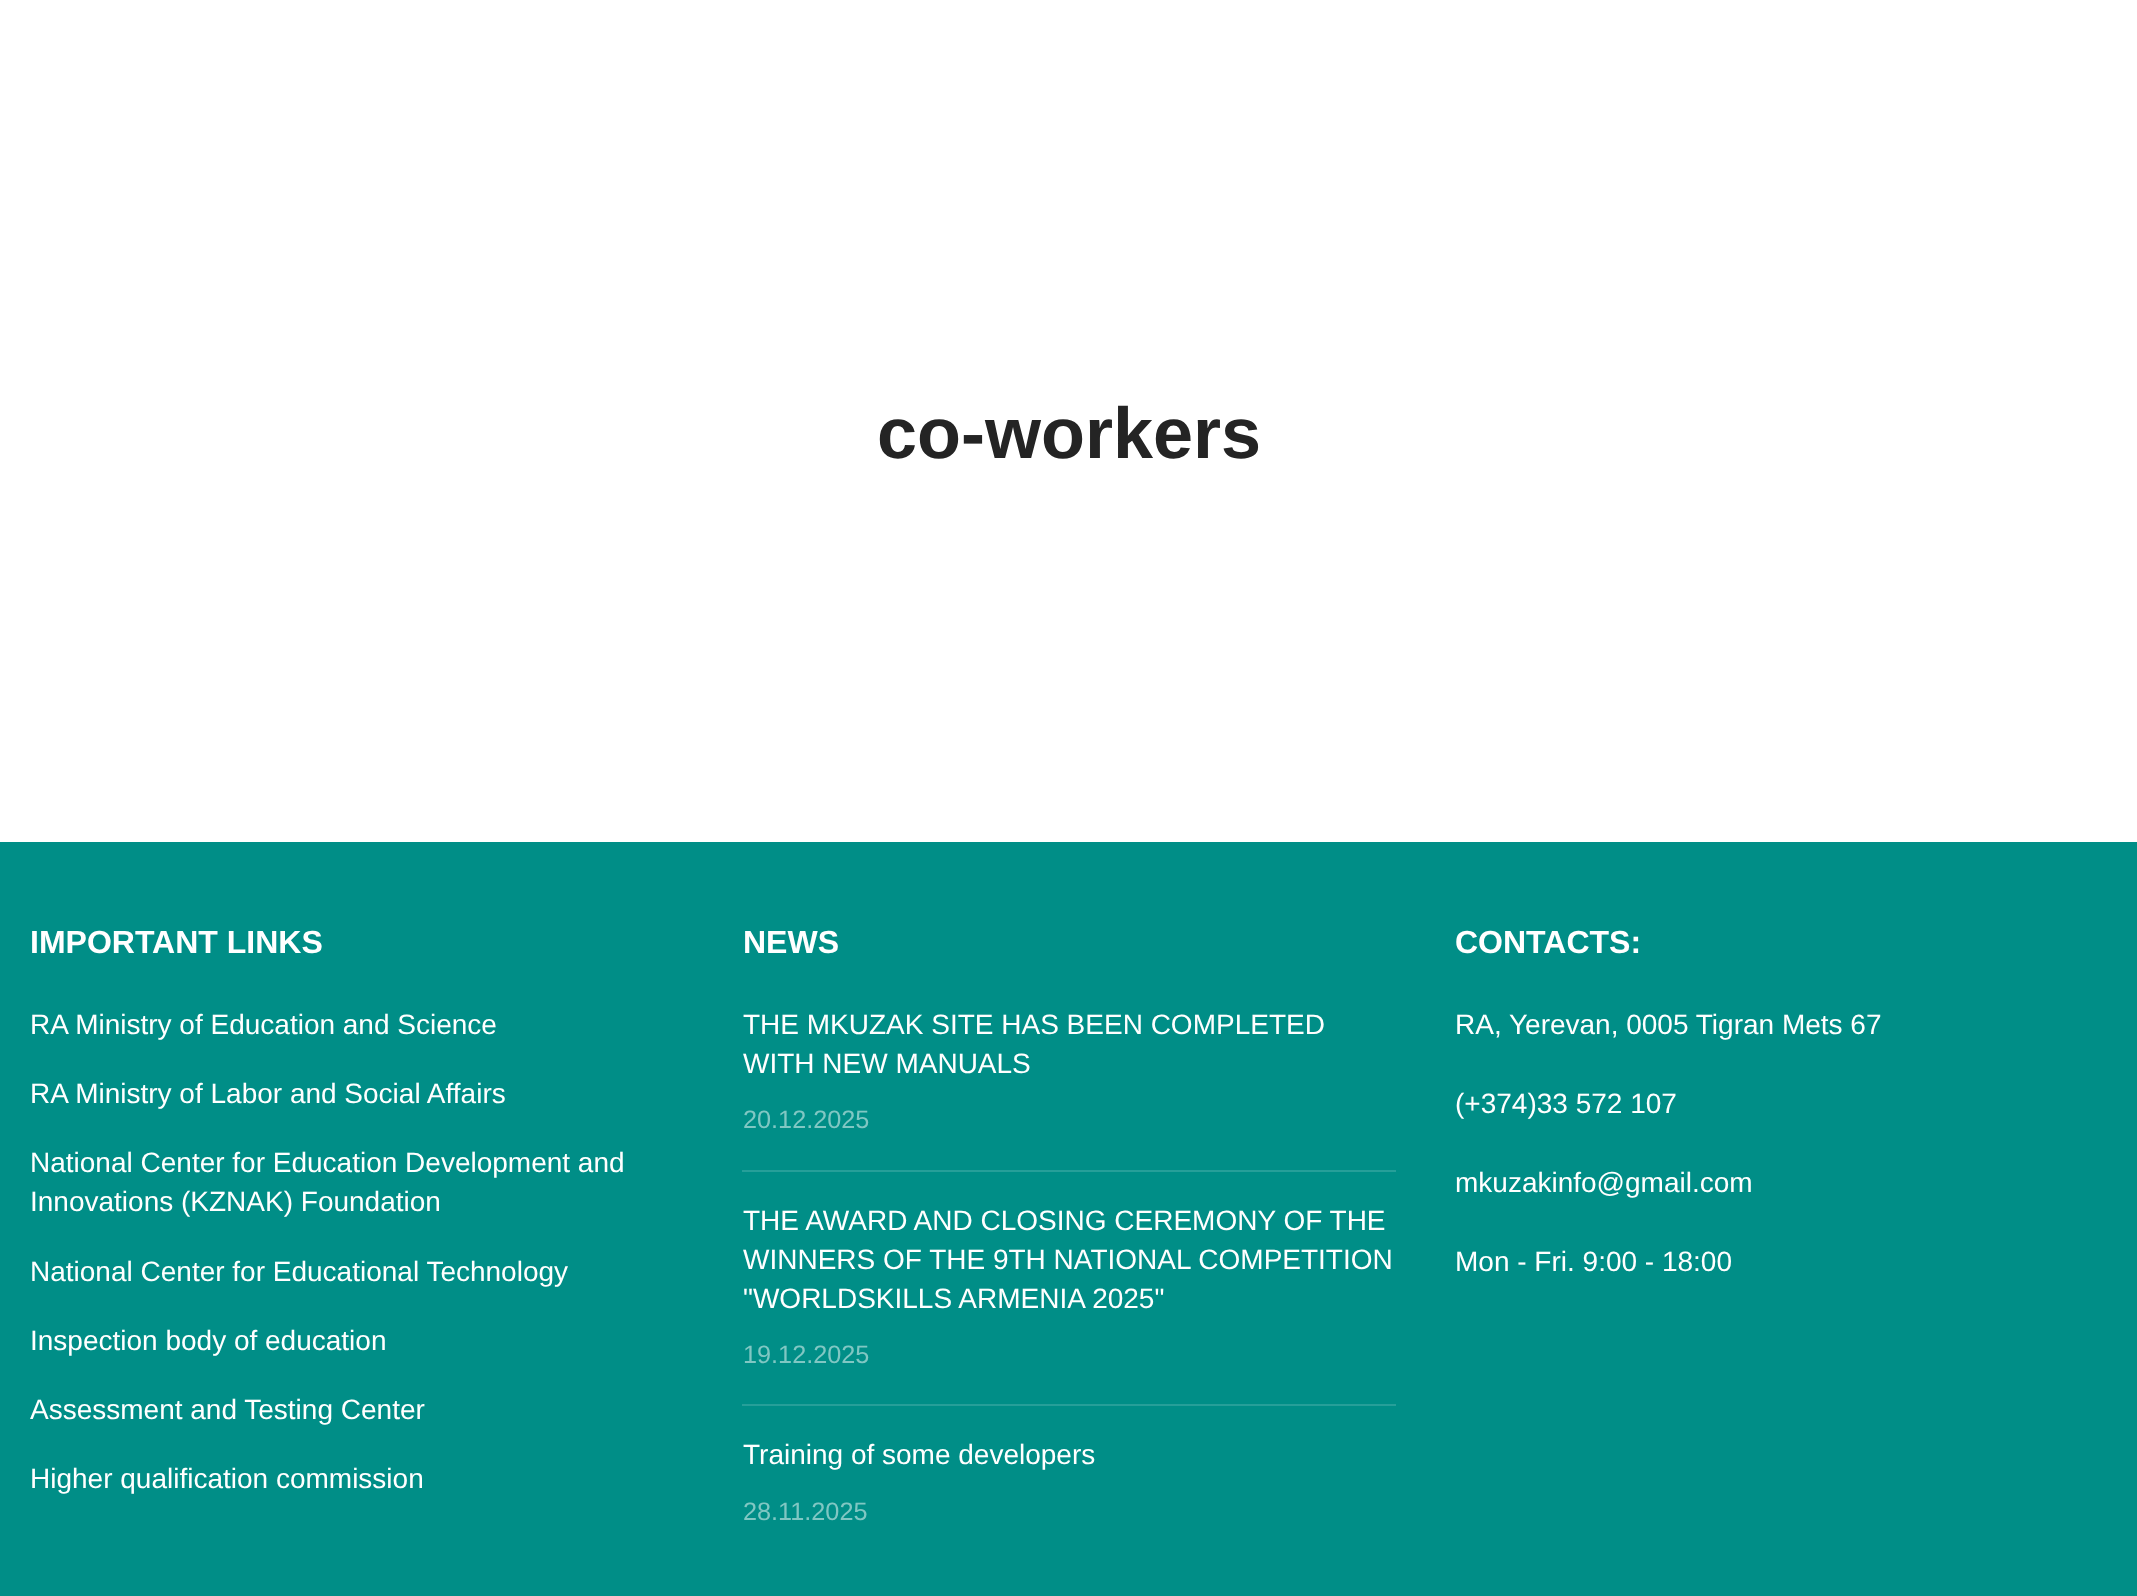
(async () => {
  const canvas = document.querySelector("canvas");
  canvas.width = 2137;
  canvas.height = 1596;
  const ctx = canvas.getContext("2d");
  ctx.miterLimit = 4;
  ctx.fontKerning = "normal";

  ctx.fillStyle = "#ffffff";
  ctx.fillRect(0, 0, 2137, 1596);
  for (const [x, y, w, h, color] of [
    [0, 842, 2137, 754, "#008e87"],
    [742, 1170, 654, 2, "#269f99"],
    [742, 1404, 654, 2, "#269f99"],
  ]) {
    ctx.fillStyle = color;
    ctx.fillRect(x, y, w, h);
  }
  ctx.font = "bold 72px Liberation Sans";
  ctx.fillStyle = "#242424";
  ctx.fillText("co-workers", 877, 458);
  ctx.font = "bold 32px Liberation Sans";
  ctx.fillStyle = "#ffffff";
  ctx.fillText("IMPORTANT LINKS", 30, 953);
  ctx.font = "28px Liberation Sans";
  for (const [text, x, y] of [
    ["RA Ministry of Education and Science", 30, 1034],
    ["RA Ministry of Labor and Social Affairs", 30, 1103],
    ["National Center for Education Development and", 30, 1172],
    ["Innovations (KZNAK) Foundation", 30, 1211],
    ["National Center for Educational Technology", 30, 1281],
    ["Inspection body of education", 30, 1350],
    ["Assessment and Testing Center", 30, 1419],
    ["Higher qualification commission", 30, 1488],
  ]) {
    ctx.fillText(text, x, y);
  }
  ctx.font = "bold 32px Liberation Sans";
  ctx.fillText("NEWS", 743, 953);
  ctx.font = "28px Liberation Sans";
  ctx.fillText("THE MKUZAK SITE HAS BEEN COMPLETED", 743, 1034);
  ctx.fillText("WITH NEW MANUALS", 743, 1073);
  ctx.font = "25.25px Liberation Sans";
  ctx.fillStyle = "#80c7c3";
  ctx.fillText("20.12.2025", 743, 1128);
  ctx.font = "28px Liberation Sans";
  ctx.fillStyle = "#ffffff";
  for (const [text, x, y] of [
    ["THE AWARD AND CLOSING CEREMONY OF THE", 743, 1230],
    ["WINNERS OF THE 9TH NATIONAL COMPETITION", 743, 1269],
    ["\"WORLDSKILLS ARMENIA 2025\"", 743, 1308],
  ]) {
    ctx.fillText(text, x, y);
  }
  ctx.font = "25.25px Liberation Sans";
  ctx.fillStyle = "#80c7c3";
  ctx.fillText("19.12.2025", 743, 1363);
  ctx.font = "28px Liberation Sans";
  ctx.fillStyle = "#ffffff";
  ctx.fillText("Training of some developers", 743, 1464);
  ctx.font = "25.25px Liberation Sans";
  ctx.fillStyle = "#80c7c3";
  ctx.fillText("28.11.2025", 743, 1520);
  ctx.font = "bold 32px Liberation Sans";
  ctx.fillStyle = "#ffffff";
  ctx.fillText("CONTACTS:", 1455, 953);
  ctx.font = "28px Liberation Sans";
  for (const [text, x, y] of [
    ["RA, Yerevan, 0005 Tigran Mets 67", 1455, 1034],
    ["(+374)33 572 107", 1455, 1113],
    ["mkuzakinfo@gmail.com", 1455, 1192],
    ["Mon - Fri. 9:00 - 18:00", 1455, 1271],
  ]) {
    ctx.fillText(text, x, y);
  }
})();
